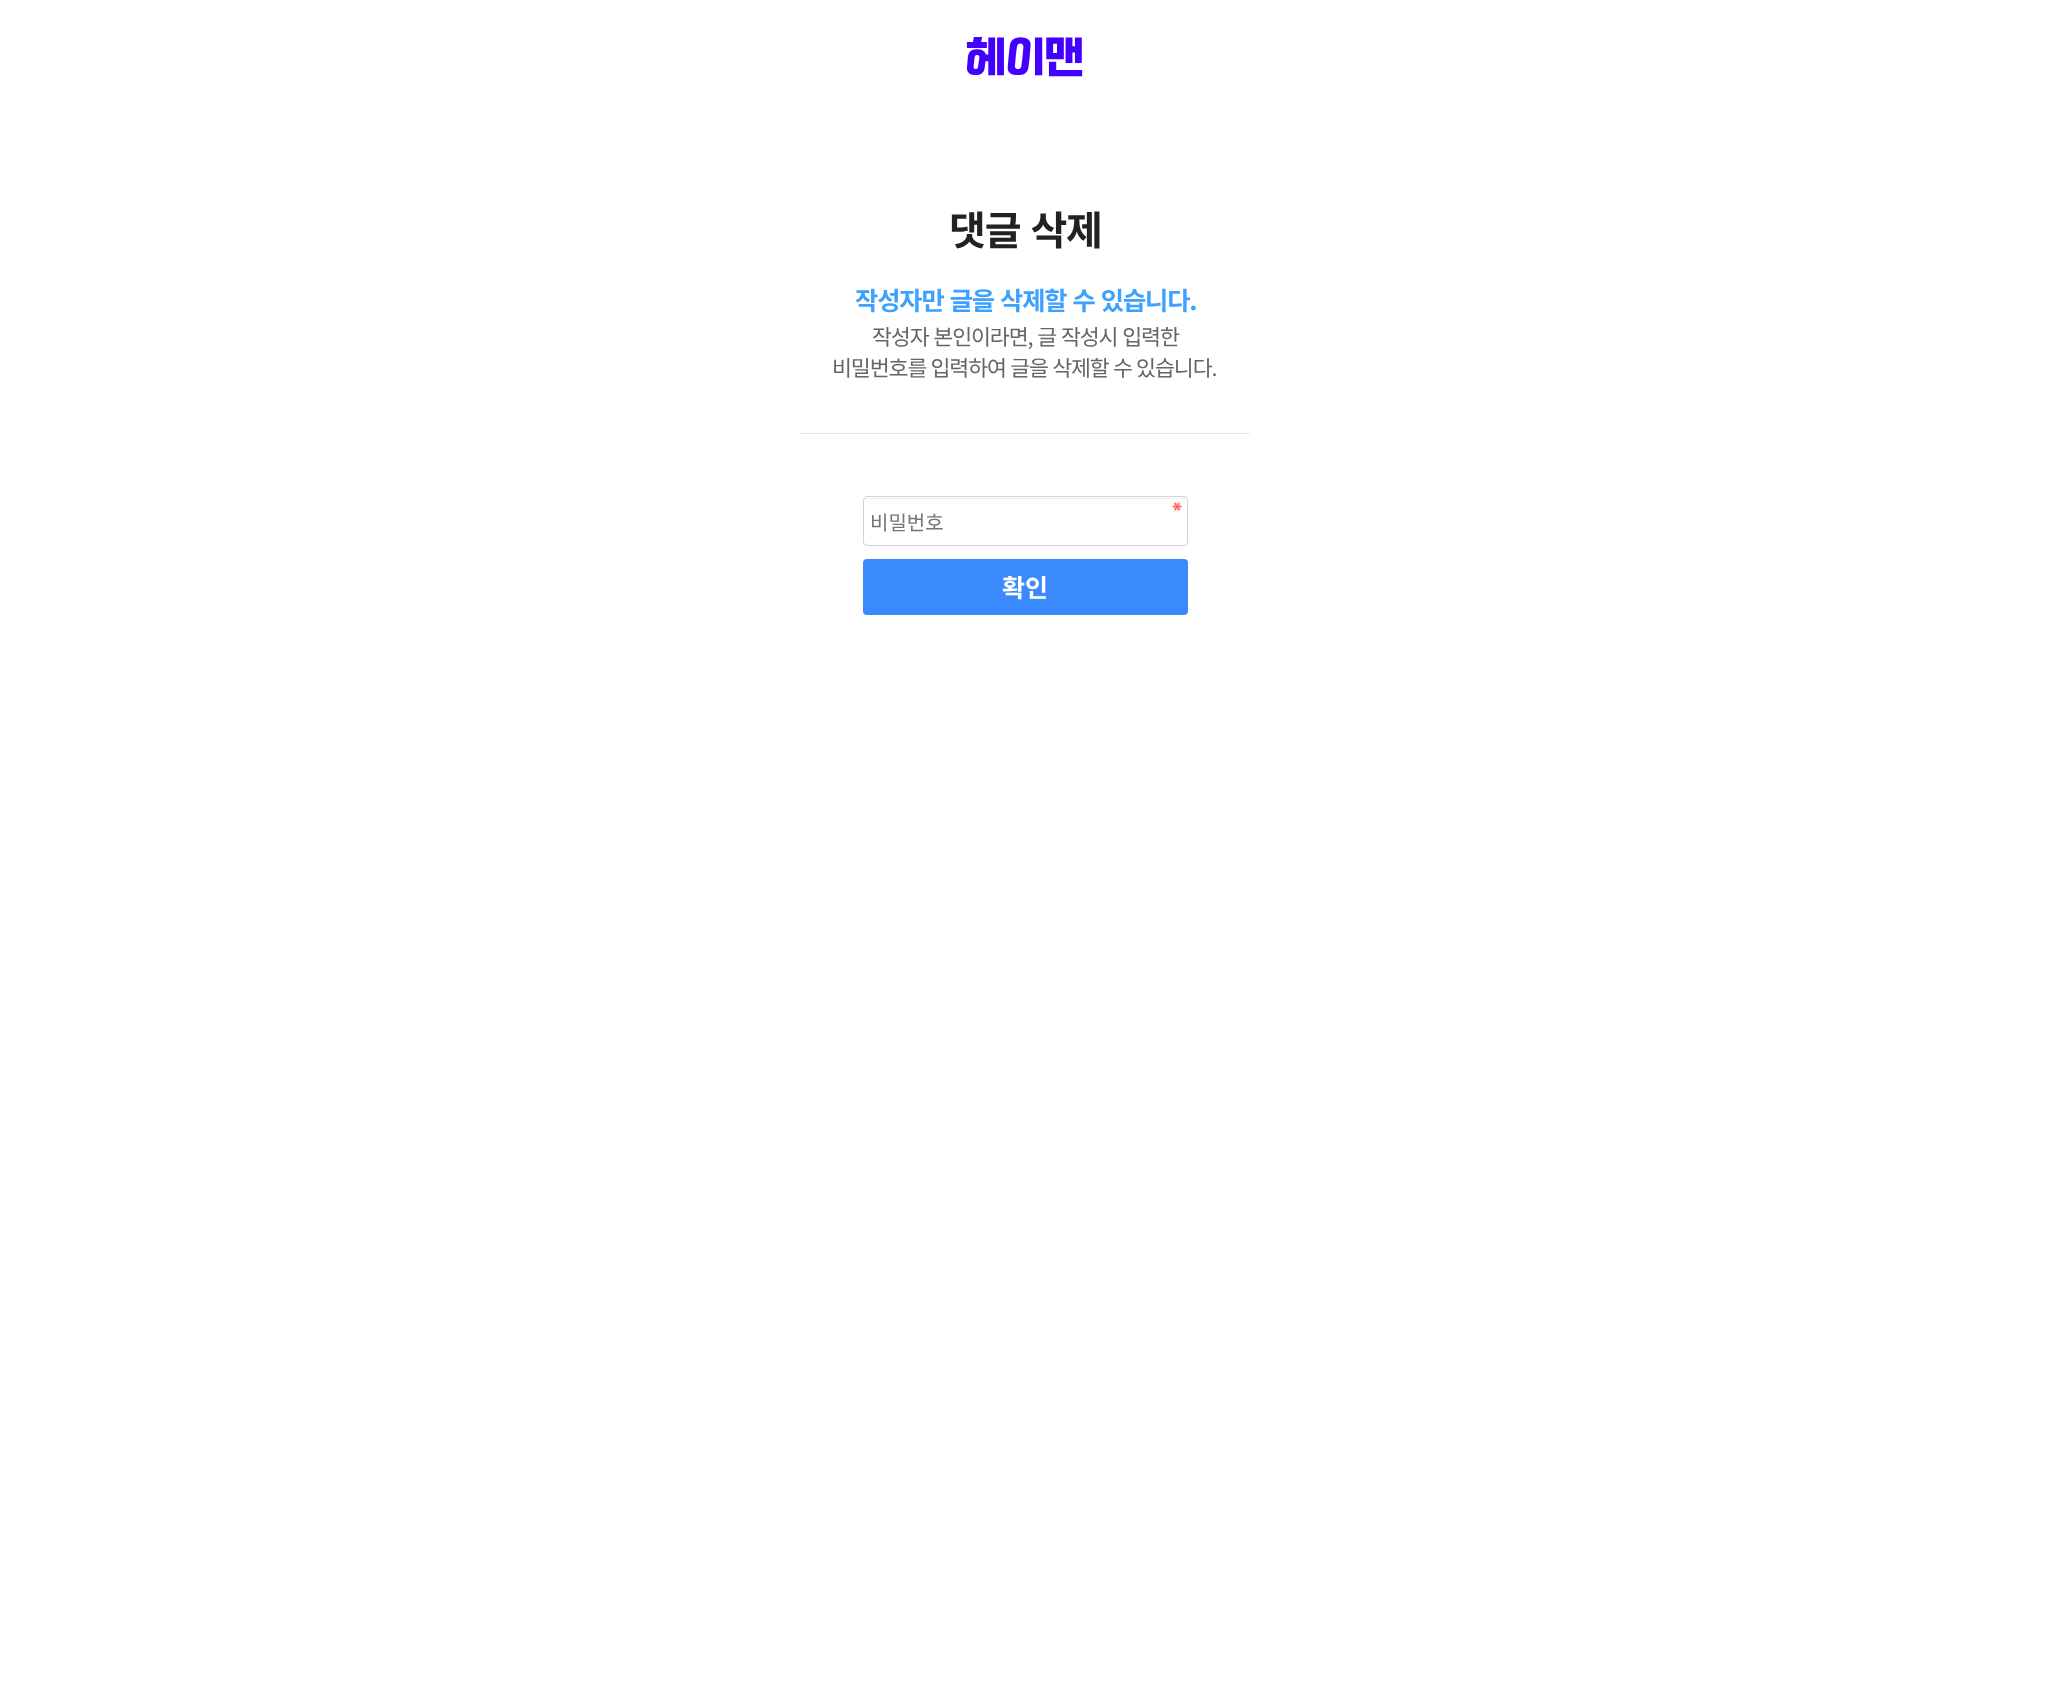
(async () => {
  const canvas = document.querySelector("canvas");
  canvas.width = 2049;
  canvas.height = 1708;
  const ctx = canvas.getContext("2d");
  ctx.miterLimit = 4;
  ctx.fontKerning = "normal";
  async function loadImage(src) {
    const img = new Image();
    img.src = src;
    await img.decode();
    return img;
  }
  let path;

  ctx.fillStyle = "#ffffff";
  ctx.fillRect(0, 0, 2049, 1708);
  ctx.fillStyle = "#e9e9e9";
  ctx.fillRect(800, 433, 450, 1);
  ctx.drawImage(await loadImage("img/1.png"), 1172, 502, 10, 10);
  ctx.fillStyle = "#ececec";
  path = new Path2D("M866 499H1184C1185 499 1186 500 1186 501C1186 499 1185 498 1184 498H866C865 498 864 499 864 501C864 500 865 499 866 499Z");
  ctx.fill(path);
  ctx.beginPath();
  ctx.roundRect(863.5, 496.5, 324, 49, 3.5);
  ctx.strokeStyle = "#d0d3db";
  ctx.stroke();
  ctx.fillStyle = "#3a8afd";
  ctx.beginPath();
  ctx.roundRect(863, 559, 325, 56, 4);
  ctx.fill();
  ctx.letterSpacing = "-1.1px";
  ctx.font = "bold 45px 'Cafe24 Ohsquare'";
  ctx.fillStyle = "#4400ff";
  ctx.fillText("헤이맨", 966, 69);
  ctx.wordSpacing = "2px";
  ctx.font = "bold 40px Noto Sans KR";
  ctx.fillStyle = "#222222";
  ctx.fillText("댓글 삭제", 949, 245);
  ctx.wordSpacing = "1.5px";
  ctx.font = "bold 25.25px Noto Sans KR";
  ctx.fillStyle = "#3ca1ff";
  ctx.fillText("작성자만 글을 삭제할 수 있습니다.", 855, 310);
  ctx.wordSpacing = "1px";
  ctx.font = "21.7px Noto Sans KR";
  ctx.fillStyle = "#656565";
  ctx.fillText("작성자 본인이라면, 글 작성시 입력한", 872, 345);
  ctx.wordSpacing = "0.5px";
  ctx.fillText("비밀번호를 입력하여 글을 삭제할 수 있습니다.", 832, 376);
  ctx.letterSpacing = "0px";
  ctx.wordSpacing = "0px";
  ctx.font = "20px Noto Sans KR";
  ctx.fillStyle = "#757575";
  ctx.fillText("비밀번호", 870, 530);
  ctx.font = "bold 25px Noto Sans KR";
  ctx.fillStyle = "#ffffff";
  ctx.fillText("확인", 1002, 597);
})();
